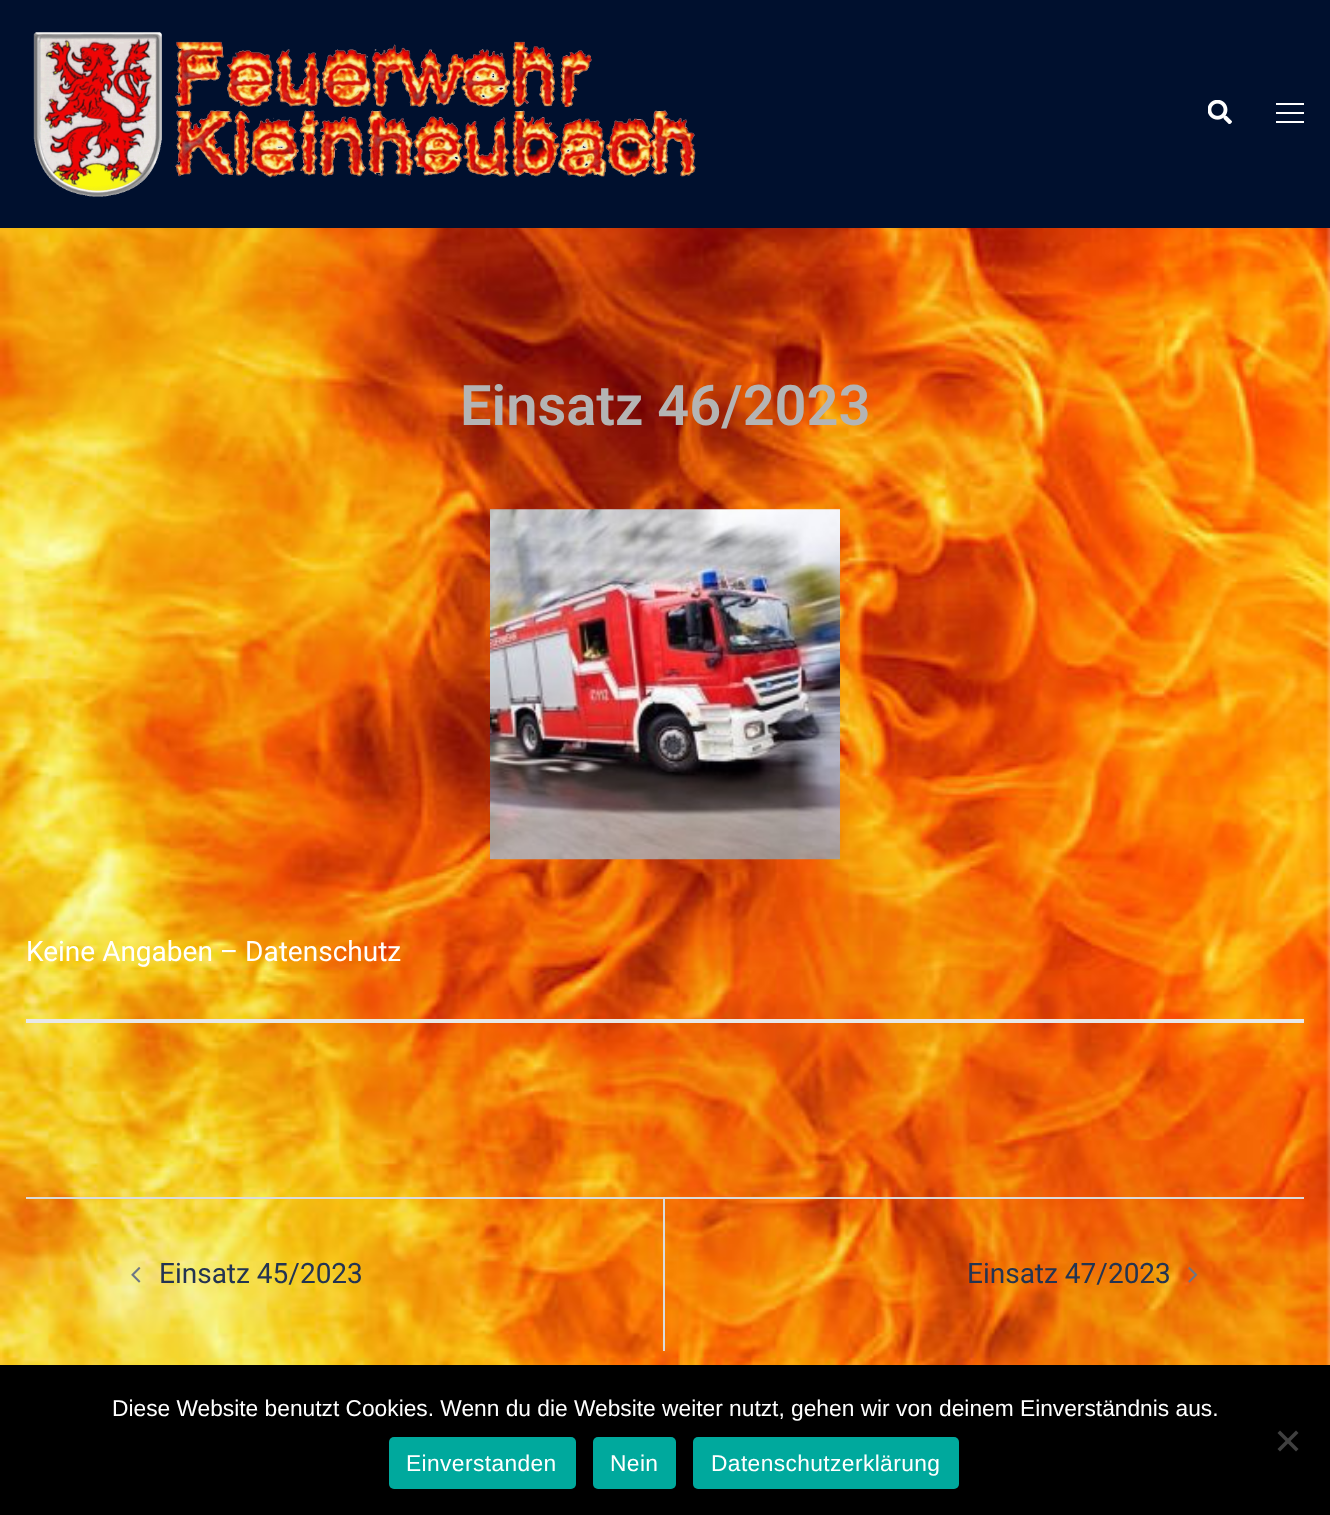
(async () => {
  const canvas = document.querySelector("canvas");
  canvas.width = 1330;
  canvas.height = 1515;
  const ctx = canvas.getContext("2d");
  ctx.miterLimit = 4;
  ctx.fontKerning = "normal";
  async function loadImage(src) {
    const img = new Image();
    img.src = src;
    await img.decode();
    return img;
  }
  let path;

  ctx.fillStyle = "#ffffff";
  ctx.fillRect(0, 0, 1330, 1515);
  ctx.drawImage(await loadImage("img/1.png"), 0, 228, 1330, 1137);
  ctx.fillStyle = "#00102e";
  ctx.fillRect(0, 0, 1330, 228);
  ctx.drawImage(await loadImage("img/2.png"), 33, 32, 663, 165);
  ctx.drawImage(await loadImage("img/3.png"), 1208, 100, 24, 24);
  for (const [x, y, w, h, color] of [
    [1276, 103, 28, 2, "#ffffff"],
    [1276, 112, 28, 2, "#ffffff"],
    [1276, 121, 28, 2, "#ffffff"],
  ]) {
    ctx.fillStyle = color;
    ctx.fillRect(x, y, w, h);
  }
  ctx.drawImage(await loadImage("img/4.png"), 490, 509, 350, 351);
  for (const [x, y, w, h, color] of [
    [26, 1019, 1278, 4, "#e8e8e8"],
    [26, 1197, 1278, 2, "#dbdbdb"],
    [663, 1199, 2, 152, "#dbdbdb"],
  ]) {
    ctx.fillStyle = color;
    ctx.fillRect(x, y, w, h);
  }
  ctx.drawImage(await loadImage("img/5.png"), 131, 1267, 10, 16);
  ctx.drawImage(await loadImage("img/6.png"), 1188, 1267, 10, 16);
  ctx.fillStyle = "#000000";
  ctx.fillRect(0, 1365, 1330, 150);
  ctx.fillStyle = "#404040";
  path = new Path2D("M1296 1430.5L1298.5 1433L1280 1451.5L1277.5 1449Z");
  ctx.fill(path);
  path = new Path2D("M1277.5 1433L1280 1430.5L1298.5 1449L1296 1451.5Z");
  ctx.fill(path);
  ctx.fillStyle = "#00a99d";
  ctx.beginPath();
  ctx.roundRect(389, 1437, 187, 52, 5);
  ctx.fill();
  ctx.beginPath();
  ctx.roundRect(593, 1437, 83, 52, 5);
  ctx.fill();
  ctx.beginPath();
  ctx.roundRect(693, 1437, 266, 52, 5);
  ctx.fill();
  ctx.font = "600 56px Roboto";
  ctx.fillStyle = "#b4b4b4";
  ctx.fillText("Einsatz 46/2023", 460, 425);
  ctx.font = "28px Roboto";
  ctx.fillStyle = "#ffffff";
  ctx.fillText("Keine Angaben – Datenschutz", 26, 961);
  ctx.fillStyle = "#233452";
  ctx.fillText("Einsatz 45/2023", 159, 1283);
  ctx.fillText("Einsatz 47/2023", 967, 1283);
  ctx.font = "22.75px Liberation Sans";
  ctx.fillStyle = "#ffffff";
  ctx.fillText("Diese Website benutzt Cookies. Wenn du die Website weiter nutzt, gehen wir von deinem Einverständnis aus.", 112, 1416);
  ctx.letterSpacing = "0.4px";
  for (const [text, x, y] of [
    ["Einverstanden", 406, 1471],
    ["Nein", 610, 1471],
    ["Datenschutzerklärung", 711, 1471],
  ]) {
    ctx.fillText(text, x, y);
  }
})();
